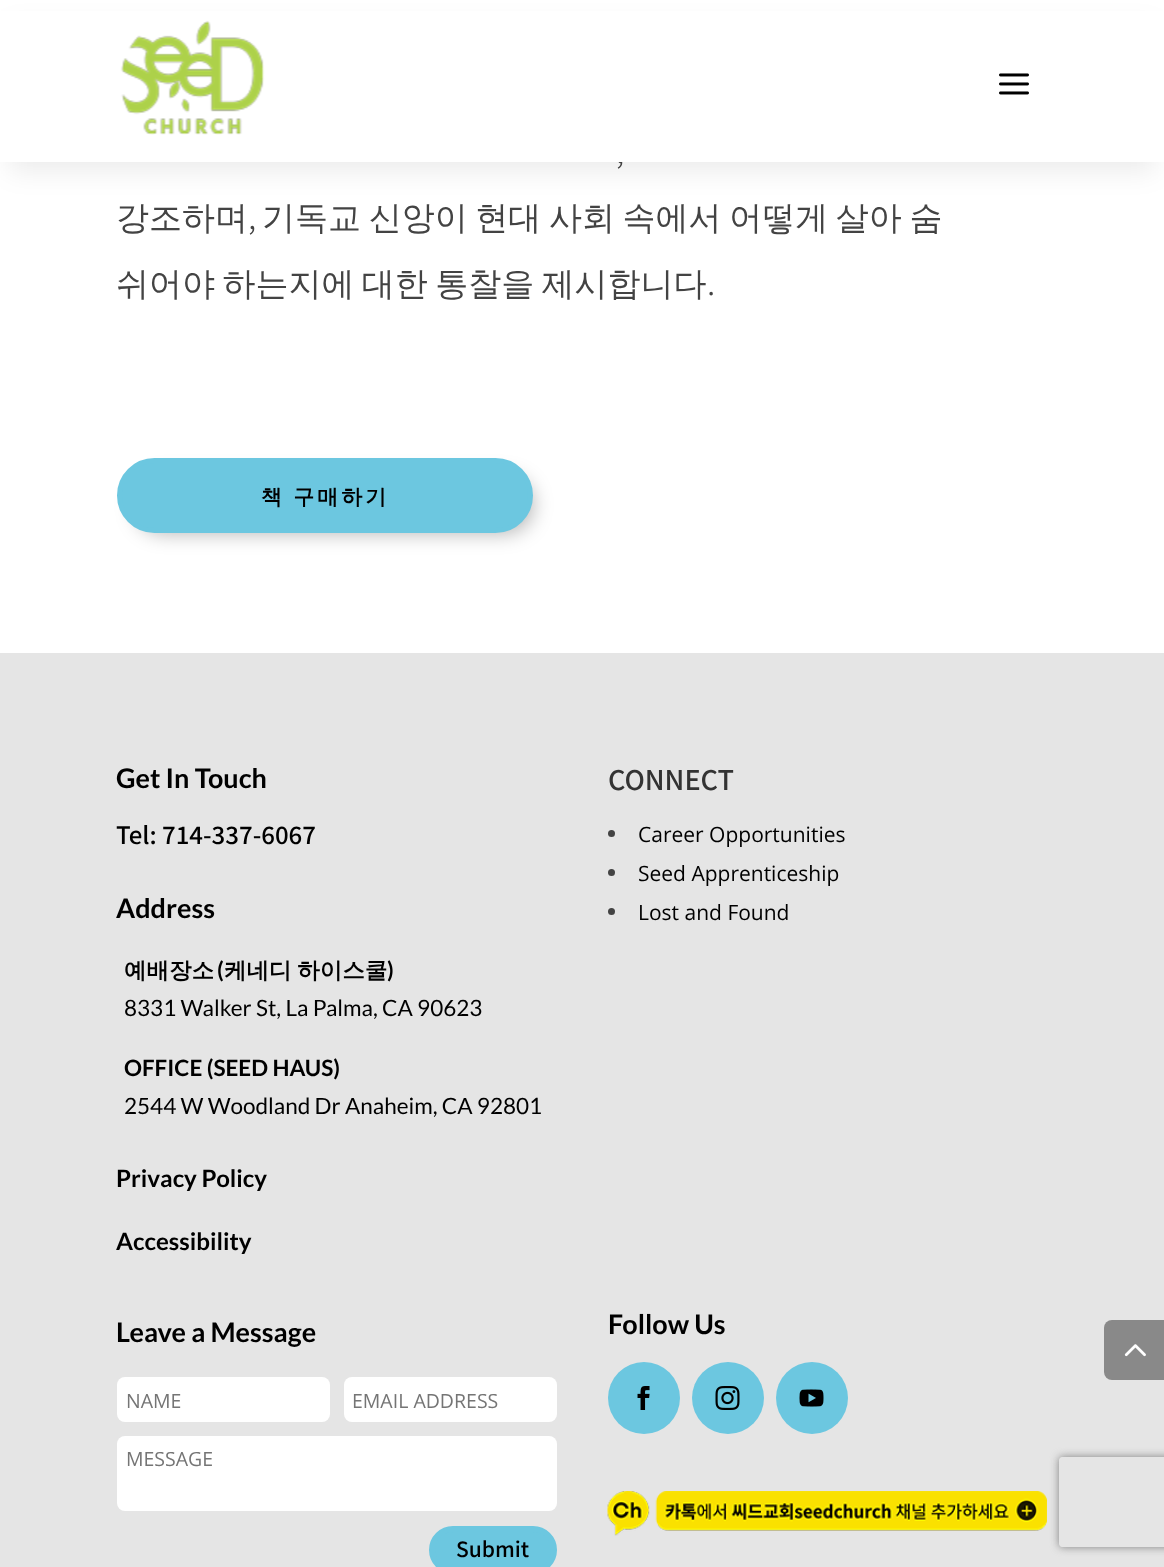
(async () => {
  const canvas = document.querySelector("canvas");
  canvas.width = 1164;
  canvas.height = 1567;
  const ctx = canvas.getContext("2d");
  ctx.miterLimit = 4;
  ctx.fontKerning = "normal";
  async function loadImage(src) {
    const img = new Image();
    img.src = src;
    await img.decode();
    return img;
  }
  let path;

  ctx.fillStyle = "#ffffff";
  ctx.fillRect(0, 0, 1164, 1567);
  ctx.fillStyle = "rgba(0, 0, 0, 0.08)";
  ctx.filter = "blur(13.5px)";
  ctx.beginPath();
  ctx.rect(9, 27, 1146, 144);
  ctx.fill();
  ctx.filter = "none";
  ctx.fillStyle = "rgba(0, 0, 0, 0.3)";
  ctx.filter = "blur(10px)";
  ctx.beginPath();
  ctx.roundRect(135, 476, 398, 57, 28.5);
  ctx.fill();
  ctx.filter = "none";
  ctx.fillStyle = "#6cc7e0";
  ctx.beginPath();
  ctx.roundRect(119.5, 460.5, 411, 70, 35);
  ctx.fill();
  ctx.strokeStyle = "#6cc7e0";
  ctx.lineWidth = 5;
  ctx.stroke();
  ctx.fillStyle = "#e5e5e5";
  ctx.fillRect(0, 653, 1164, 914);
  ctx.fillStyle = "#434343";
  ctx.beginPath();
  ctx.arc(611.5, 833.5, 3.5, 0, Math.PI * 2);
  ctx.fill();
  ctx.beginPath();
  ctx.arc(611.5, 872.5, 3.5, 0, Math.PI * 2);
  ctx.fill();
  ctx.beginPath();
  ctx.arc(611.5, 911.5, 3.5, 0, Math.PI * 2);
  ctx.fill();
  ctx.fillStyle = "#ffffff";
  ctx.beginPath();
  ctx.roundRect(117, 1377, 213, 45, 8);
  ctx.fill();
  ctx.beginPath();
  ctx.roundRect(344, 1377, 213, 45, 8);
  ctx.fill();
  ctx.beginPath();
  ctx.roundRect(117, 1436, 440, 75, 8);
  ctx.fill();
  ctx.fillStyle = "#6cc7e0";
  ctx.beginPath();
  ctx.roundRect(432, 1529, 122, 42, 21);
  ctx.fill();
  ctx.lineWidth = 6;
  ctx.stroke();
  ctx.beginPath();
  ctx.arc(644, 1398, 36, 0, Math.PI * 2);
  ctx.fill();
  ctx.drawImage(await loadImage("img/3.png"), 637, 1386, 13, 24);
  ctx.beginPath();
  ctx.arc(728, 1398, 36, 0, Math.PI * 2);
  ctx.fill();
  ctx.drawImage(await loadImage("img/4.png"), 715, 1386, 25, 24);
  ctx.beginPath();
  ctx.arc(812, 1398, 36, 0, Math.PI * 2);
  ctx.fill();
  ctx.drawImage(await loadImage("img/5.png"), 799, 1389, 25, 18);
  ctx.drawImage(await loadImage("img/6.png"), 607, 1491, 440, 45);
  ctx.fillStyle = "#898989";
  ctx.beginPath();
  ctx.roundRect(1104, 1320, 60, 60, [8, 0, 0, 8]);
  ctx.fill();
  ctx.drawImage(await loadImage("img/7.png"), 1124, 1344, 22, 13);
  ctx.save();
  path = new Path2D("M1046 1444H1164V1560H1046ZM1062 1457H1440C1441.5 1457 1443 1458.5 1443 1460V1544C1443 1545.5 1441.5 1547 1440 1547H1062C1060.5 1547 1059 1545.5 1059 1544V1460C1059 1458.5 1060.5 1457 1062 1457Z");
  ctx.clip(path, "evenodd");
  ctx.fillStyle = "#808080";
  ctx.filter = "blur(4px)";
  ctx.beginPath();
  ctx.roundRect(1059, 1457, 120, 90, 3);
  ctx.fill();
  ctx.filter = "none";
  ctx.restore();
  ctx.font = "100 33px Noto Sans KR";
  ctx.fillStyle = "#434343";
  ctx.fillText(",", 616, 163);
  ctx.fillStyle = "#ffffff";
  ctx.fillRect(0, 11, 1164, 151);
  ctx.drawImage(await loadImage("img/2.png"), 999, 73, 30, 22);
  ctx.drawImage(await loadImage("img/1.png"), 120, 20, 145, 115);
  ctx.font = "500 33px WenQuanYi Zen Hei";
  ctx.fillStyle = "#434343";
  ctx.fillText("강조하며", 116, 229);
  ctx.font = "100 33px Noto Sans KR";
  ctx.fillText(",", 248, 229);
  ctx.wordSpacing = "-2.25px";
  ctx.font = "500 33px WenQuanYi Zen Hei";
  ctx.fillText("기독교 신앙이 현대 사회 속에서 어떻게 살아 숨", 262, 229);
  ctx.wordSpacing = "-2.5px";
  ctx.fillText("쉬어야 하는지에 대한 통찰을 제시합니다", 116, 295);
  ctx.wordSpacing = "0px";
  ctx.font = "100 33px Noto Sans KR";
  ctx.fillText(".", 707, 295);
  ctx.letterSpacing = "3px";
  ctx.wordSpacing = "-1px";
  ctx.font = "bold 21px WenQuanYi Zen Hei";
  ctx.fillStyle = "#000000";
  ctx.fillText("책 구매하기", 261, 504);
  ctx.letterSpacing = "0px";
  ctx.wordSpacing = "0px";
  ctx.font = "bold 27px Lato";
  ctx.fillText("Get In Touch", 116, 788);
  ctx.font = "100 24px 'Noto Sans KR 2'";
  ctx.fillText("Tel: 714-337-6067", 116, 844);
  ctx.font = "bold 27px Lato";
  ctx.fillText("Address", 116, 918);
  ctx.font = "bold 22.5px WenQuanYi Zen Hei";
  ctx.fillText("예배장소", 124, 978);
  ctx.font = "bold 22.5px Lato";
  ctx.fillText("(", 217, 978);
  ctx.wordSpacing = "-1px";
  ctx.font = "bold 22.5px WenQuanYi Zen Hei";
  ctx.fillText("케네디 하이스쿨", 224, 978);
  ctx.wordSpacing = "0px";
  ctx.font = "bold 22.5px Lato";
  ctx.fillText(")", 387, 978);
  ctx.font = "22.5px Lato";
  ctx.fillText("8331 Walker St, La Palma, CA 90623", 124, 1016);
  ctx.font = "bold 22.5px Lato";
  ctx.fillText("OFFICE (SEED HAUS)", 124, 1076);
  ctx.font = "22.5px Lato";
  ctx.fillText("2544 W Woodland Dr Anaheim, CA 92801", 124, 1114);
  ctx.font = "bold 24px Lato";
  ctx.fillText("Privacy Policy", 116, 1187);
  ctx.fillText("Accessibility", 116, 1250);
  ctx.font = "100 27px 'Noto Sans KR 2'";
  ctx.fillStyle = "#333333";
  ctx.fillText("CONNECT", 608, 790);
  ctx.font = "21px Open Sans";
  ctx.fillStyle = "#000000";
  for (const [text, x, y] of [
    ["Career Opportunities", 638, 842],
    ["Seed Apprenticeship", 638, 881],
    ["Lost and Found", 638, 920],
  ]) {
    ctx.fillText(text, x, y);
  }
  ctx.font = "bold 27px Lato";
  ctx.fillText("Leave a Message", 116, 1342);
  ctx.font = "19.5px Open Sans";
  ctx.fillStyle = "#757575";
  for (const [text, x, y] of [
    ["NAME", 126, 1408],
    ["EMAIL ADDRESS", 352, 1408],
    ["MESSAGE", 126, 1466],
  ]) {
    ctx.fillText(text, x, y);
  }
  ctx.font = "100 21px 'Noto Sans KR 2'";
  ctx.fillStyle = "#000000";
  ctx.fillText("Submit", 456, 1557);
  ctx.font = "bold 27px Lato";
  ctx.fillText("Follow Us", 608, 1334);
})();
